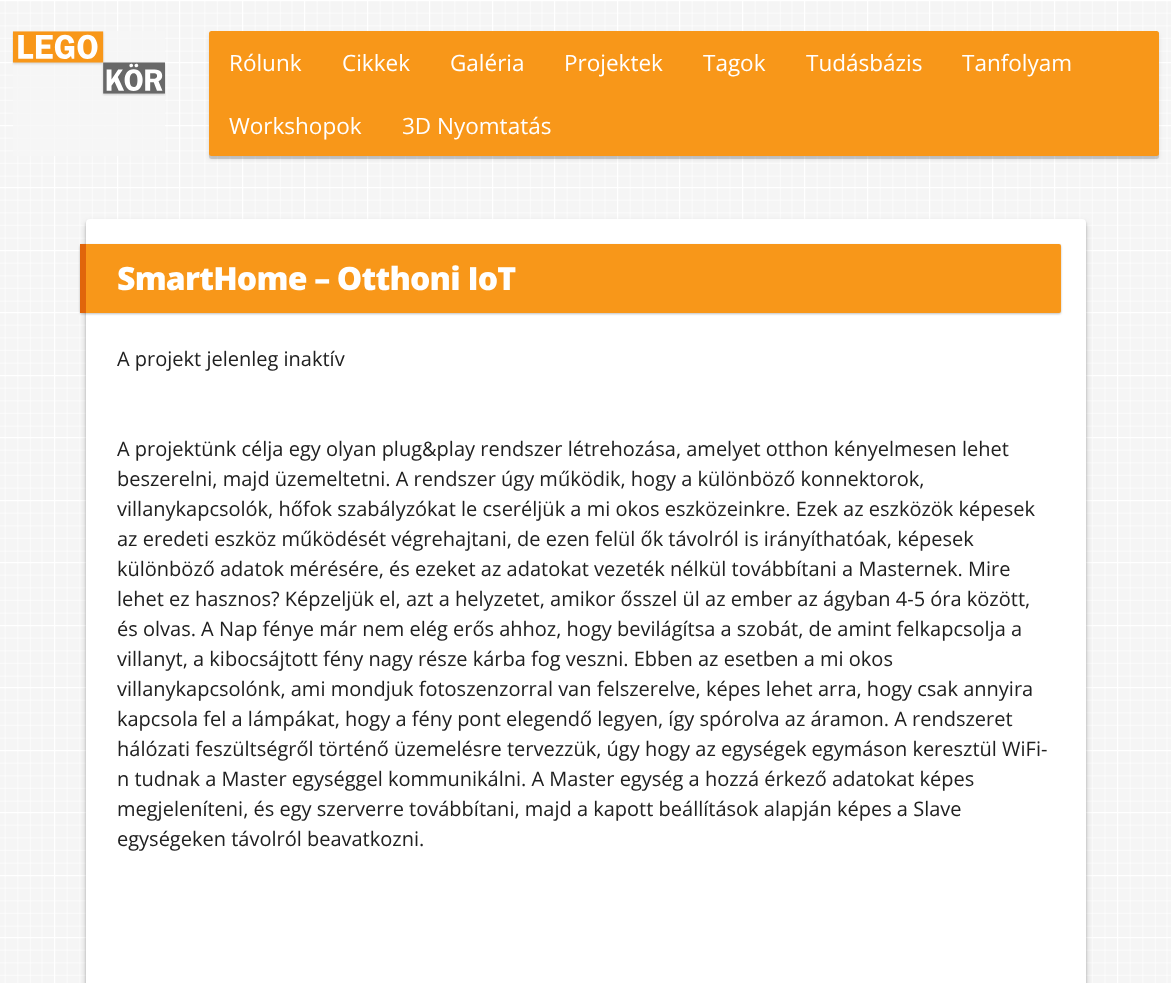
(async () => {
  const canvas = document.querySelector("canvas");
  canvas.width = 1171;
  canvas.height = 983;
  const ctx = canvas.getContext("2d");
  ctx.miterLimit = 4;
  ctx.fontKerning = "normal";
  async function loadImage(src) {
    const img = new Image();
    img.src = src;
    await img.decode();
    return img;
  }

  ctx.fillStyle = "#f5f5f5";
  ctx.fillRect(0, 0, 1171, 983);
  ctx.drawImage(await loadImage("img/1.png"), 0, 0, 1171, 983);
  ctx.fillStyle = "rgba(245, 245, 245, 0.75)";
  ctx.fillRect(13, 31, 152, 125);
  ctx.drawImage(await loadImage("img/2.png"), 12, 31, 154, 65);
  ctx.fillStyle = "rgba(0, 0, 0, 0.1)";
  ctx.filter = "blur(2px)";
  ctx.beginPath();
  ctx.roundRect(209, 34, 950, 125, 2.5);
  ctx.fill();
  ctx.filter = "none";
  ctx.fillStyle = "rgba(0, 0, 0, 0.15)";
  ctx.filter = "blur(0.5px)";
  ctx.beginPath();
  ctx.roundRect(209, 34, 950, 125, 2.5);
  ctx.fill();
  ctx.filter = "none";
  ctx.fillStyle = "#f89719";
  ctx.beginPath();
  ctx.roundRect(209, 31, 950, 125, 2.5);
  ctx.fill();
  ctx.fillStyle = "rgba(0, 0, 0, 0.19)";
  ctx.filter = "blur(3px)";
  ctx.beginPath();
  ctx.roundRect(86, 223, 1000, 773, 4);
  ctx.fill();
  ctx.filter = "none";
  ctx.fillStyle = "rgba(0, 0, 0, 0.2)";
  ctx.filter = "blur(1px)";
  ctx.beginPath();
  ctx.roundRect(86, 221, 1000, 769, 4);
  ctx.fill();
  ctx.filter = "none";
  ctx.fillStyle = "#ffffff";
  ctx.beginPath();
  ctx.roundRect(86, 219, 1000, 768, 4);
  ctx.fill();
  ctx.fillStyle = "rgba(0, 0, 0, 0.25)";
  ctx.filter = "blur(1px)";
  ctx.beginPath();
  ctx.roundRect(80, 245, 981, 69, 2);
  ctx.fill();
  ctx.filter = "none";
  ctx.fillStyle = "#f89719";
  ctx.beginPath();
  ctx.roundRect(80, 244, 981, 69, [0, 2, 2, 0]);
  ctx.fill();
  ctx.fillStyle = "#e0650b";
  ctx.fillRect(80, 244, 6, 69);
  ctx.font = "22.5px Open Sans";
  ctx.fillStyle = "#ffffff";
  for (const [text, x, y] of [
    ["Rólunk", 229, 71],
    ["Cikkek", 342, 71],
    ["Galéria", 450, 71],
    ["Projektek", 564, 71],
    ["Tagok", 703, 71],
    ["Tudásbázis", 806, 71],
    ["Tanfolyam", 962, 71],
    ["Workshopok", 229, 134],
    ["3D Nyomtatás", 402, 134],
  ]) {
    ctx.fillText(text, x, y);
  }
  ctx.letterSpacing = "-0.8px";
  ctx.font = "800 32px Open Sans";
  ctx.fillText("SmartHome – Otthoni IoT", 117, 290);
  ctx.letterSpacing = "0px";
  ctx.font = "20px Open Sans";
  ctx.fillStyle = "#202020";
  for (const [text, x, y] of [
    ["A projekt jelenleg inaktív", 117, 366],
    ["A projektünk célja egy olyan plug&play rendszer létrehozása, amelyet otthon kényelmesen lehet", 117, 456],
    ["beszerelni, majd üzemeltetni. A rendszer úgy működik, hogy a különböző konnektorok,", 117, 486],
    ["villanykapcsolók, hőfok szabályzókat le cseréljük a mi okos eszközeinkre. Ezek az eszközök képesek", 117, 516],
    ["az eredeti eszköz működését végrehajtani, de ezen felül ők távolról is irányíthatóak, képesek", 117, 546],
    ["különböző adatok mérésére, és ezeket az adatokat vezeték nélkül továbbítani a Masternek. Mire", 117, 576],
    ["lehet ez hasznos? Képzeljük el, azt a helyzetet, amikor ősszel ül az ember az ágyban 4-5 óra között,", 117, 606],
    ["és olvas. A Nap fénye már nem elég erős ahhoz, hogy bevilágítsa a szobát, de amint felkapcsolja a", 117, 636],
    ["villanyt, a kibocsájtott fény nagy része kárba fog veszni. Ebben az esetben a mi okos", 117, 666],
    ["villanykapcsolónk, ami mondjuk fotoszenzorral van felszerelve, képes lehet arra, hogy csak annyira", 117, 696],
    ["kapcsola fel a lámpákat, hogy a fény pont elegendő legyen, így spórolva az áramon. A rendszeret", 117, 726],
    ["hálózati feszültségről történő üzemelésre tervezzük, úgy hogy az egységek egymáson keresztül WiFi-", 117, 756],
    ["n tudnak a Master egységgel kommunikálni. A Master egység a hozzá érkező adatokat képes", 117, 786],
    ["megjeleníteni, és egy szerverre továbbítani, majd a kapott beállítások alapján képes a Slave", 117, 816],
    ["egységeken távolról beavatkozni.", 117, 846],
  ]) {
    ctx.fillText(text, x, y);
  }
})();
